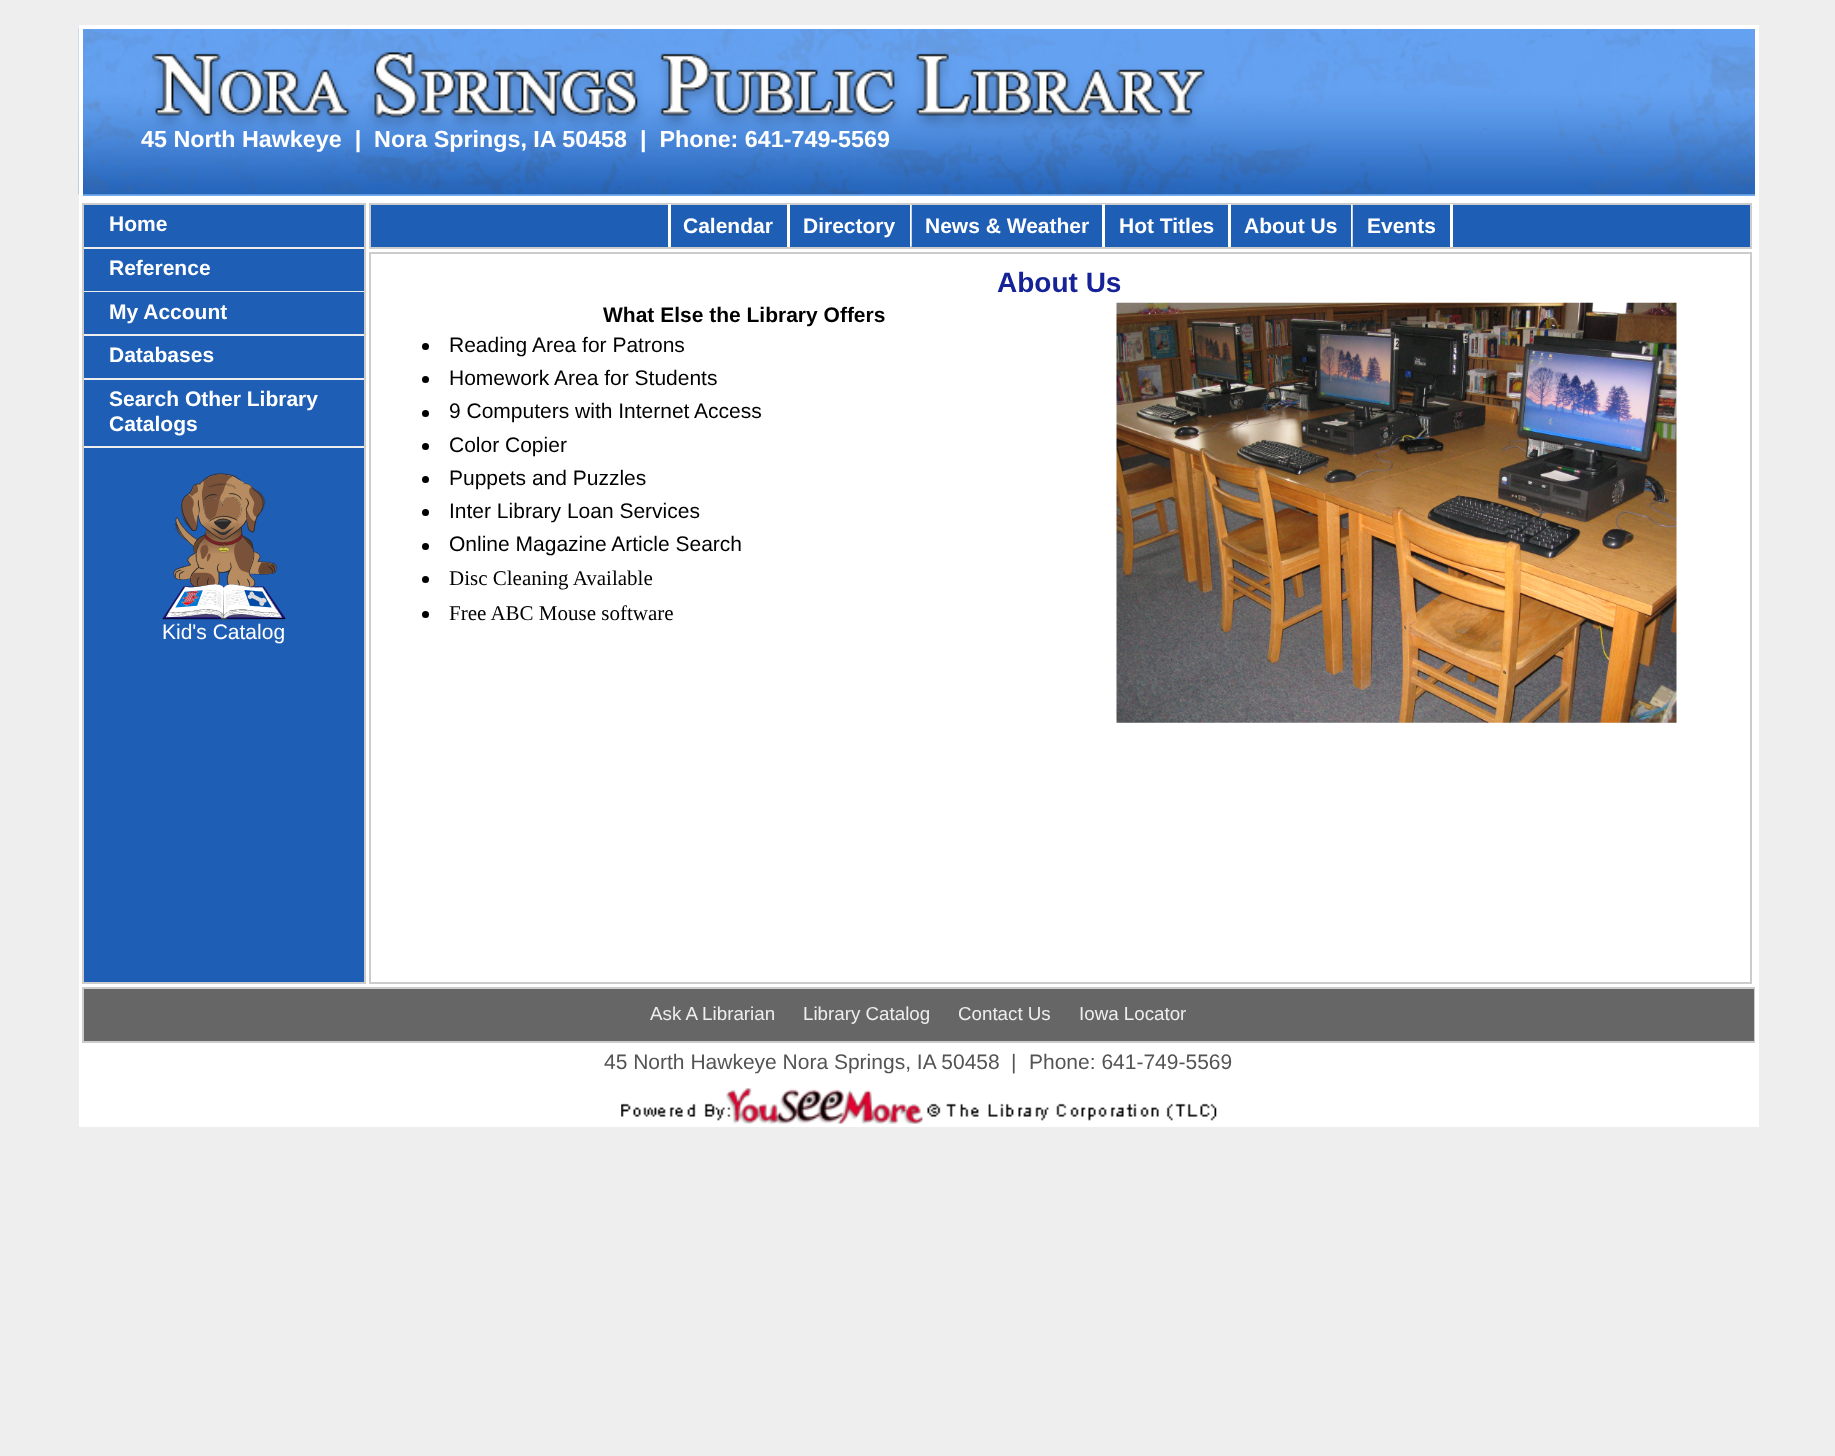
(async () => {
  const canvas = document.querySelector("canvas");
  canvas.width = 1835;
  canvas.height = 1456;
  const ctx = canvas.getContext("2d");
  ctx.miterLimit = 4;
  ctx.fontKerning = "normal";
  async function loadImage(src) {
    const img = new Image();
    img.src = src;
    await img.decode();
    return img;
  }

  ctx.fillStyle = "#eeeeee";
  ctx.fillRect(0, 0, 1835, 1456);
  ctx.fillStyle = "#75aced";
  ctx.fillRect(83, 194, 1672, 2);
  ctx.drawImage(await loadImage("img/1.png"), 78, 28, 1677, 167);
  ctx.strokeStyle = "#ffffff";
  ctx.lineWidth = 4;
  ctx.strokeRect(81, 27, 1676, 171);
  ctx.fillStyle = "#ffffff";
  ctx.fillRect(79, 200, 1680, 927);
  ctx.fillStyle = "#1e5eb5";
  ctx.beginPath();
  ctx.rect(83, 204, 282, 779);
  ctx.fill();
  ctx.strokeStyle = "#cccccc";
  ctx.lineWidth = 2;
  ctx.stroke();
  for (const [x, y, w, h, color] of [
    [84, 247, 280, 2, "#eeeeee"],
    [84, 291, 280, 1, "#eeeeee"],
    [84, 334, 280, 2, "#eeeeee"],
    [84, 378, 280, 2, "#eeeeee"],
    [84, 446, 280, 2, "#eeeeee"],
  ]) {
    ctx.fillStyle = color;
    ctx.fillRect(x, y, w, h);
  }
  ctx.drawImage(await loadImage("img/2.png"), 162, 473, 124, 147);
  ctx.fillStyle = "#1e5eb5";
  ctx.beginPath();
  ctx.rect(370, 204, 1381, 44);
  ctx.fill();
  ctx.stroke();
  ctx.fillStyle = "#ffffff";
  ctx.fillRect(668, 204, 3, 43);
  ctx.fillRect(787, 204, 3, 43);
  ctx.drawImage(await loadImage("img/3.png"), 910, 204, 2, 43);
  ctx.fillRect(1102, 204, 3, 43);
  ctx.fillRect(1228, 204, 3, 43);
  ctx.drawImage(await loadImage("img/3.png"), 1351, 204, 2, 43);
  ctx.fillRect(1450, 204, 3, 43);
  ctx.strokeRect(370, 253, 1381, 730);
  ctx.drawImage(await loadImage("img/4.png"), 1116, 302, 561, 421);
  ctx.fillStyle = "#000000";
  ctx.beginPath();
  ctx.arc(425.5, 346.5, 3.5, 0, Math.PI * 2);
  ctx.fill();
  ctx.beginPath();
  ctx.arc(425.5, 379.5, 3.5, 0, Math.PI * 2);
  ctx.fill();
  ctx.beginPath();
  ctx.arc(425.5, 413.5, 3.5, 0, Math.PI * 2);
  ctx.fill();
  ctx.beginPath();
  ctx.arc(425.5, 446.5, 3.5, 0, Math.PI * 2);
  ctx.fill();
  ctx.beginPath();
  ctx.arc(425.5, 479.5, 3.5, 0, Math.PI * 2);
  ctx.fill();
  ctx.beginPath();
  ctx.arc(425.5, 512.5, 3.5, 0, Math.PI * 2);
  ctx.fill();
  ctx.beginPath();
  ctx.arc(425.5, 546.5, 3.5, 0, Math.PI * 2);
  ctx.fill();
  ctx.beginPath();
  ctx.arc(425.5, 579.5, 3.5, 0, Math.PI * 2);
  ctx.fill();
  ctx.beginPath();
  ctx.arc(425.5, 614.5, 3.5, 0, Math.PI * 2);
  ctx.fill();
  ctx.strokeRect(83, 988, 1671, 54);
  ctx.fillStyle = "#666666";
  ctx.fillRect(84, 989, 1670, 52);
  ctx.drawImage(await loadImage("img/5.png"), 621, 1088, 596, 36);
  ctx.font = "bold 23.3px Liberation Sans";
  ctx.fillStyle = "#ffffff";
  ctx.fillText("45 North Hawkeye  |  Nora Springs, IA 50458  |  Phone: 641-749-5569", 141, 147);
  ctx.font = "bold 21px Liberation Sans";
  for (const [text, x, y] of [
    ["Home", 109, 231],
    ["Reference", 109, 275],
    ["My Account", 109, 319],
    ["Databases", 109, 362],
    ["Search Other Library", 109, 406],
    ["Catalogs", 109, 431],
  ]) {
    ctx.fillText(text, x, y);
  }
  ctx.font = "21px Liberation Sans";
  ctx.fillText("Kid's Catalog", 162, 639);
  ctx.font = "bold 21px Liberation Sans";
  for (const [text, x, y] of [
    ["Calendar", 683, 233],
    ["Directory", 803, 233],
    ["News & Weather", 925, 233],
    ["Hot Titles", 1119, 233],
    ["About Us", 1244, 233],
    ["Events", 1367, 233],
  ]) {
    ctx.fillText(text, x, y);
  }
  ctx.font = "bold 28px Liberation Sans";
  ctx.fillStyle = "#162297";
  ctx.fillText("About Us", 997, 292);
  ctx.font = "bold 21px Liberation Sans";
  ctx.fillStyle = "#000000";
  ctx.fillText("What Else the Library Offers", 603, 322);
  ctx.font = "21px Liberation Sans";
  for (const [text, x, y] of [
    ["Reading Area for Patrons", 449, 352],
    ["Homework Area for Students", 449, 385],
    ["9 Computers with Internet", 449, 418],
    ["Access", 694, 418],
    ["Color Copier", 449, 452],
    ["Puppets and Puzzles", 449, 485],
    ["Inter Library Loan Services", 449, 518],
    ["Online Magazine Article Search", 449, 551],
  ]) {
    ctx.fillText(text, x, y);
  }
  ctx.font = "21px Liberation Serif";
  ctx.fillText("Disc Cleaning Available", 449, 585);
  ctx.fillText("Free ABC Mouse software", 449, 620);
  ctx.font = "18.75px Liberation Sans";
  ctx.fillStyle = "#eeeeee";
  for (const [text, x, y] of [
    ["Ask A Librarian", 650, 1020],
    ["Library Catalog", 803, 1020],
    ["Contact Us", 958, 1020],
    ["Iowa Locator", 1079, 1020],
  ]) {
    ctx.fillText(text, x, y);
  }
  ctx.font = "21px Liberation Sans";
  ctx.fillStyle = "#545454";
  for (const [text, x, y] of [
    ["45 North Hawkeye Nora Springs, IA 50458", 604, 1069],
    ["|", 1011, 1069],
    ["Phone: 641-749-5569", 1029, 1069],
  ]) {
    ctx.fillText(text, x, y);
  }
})();
